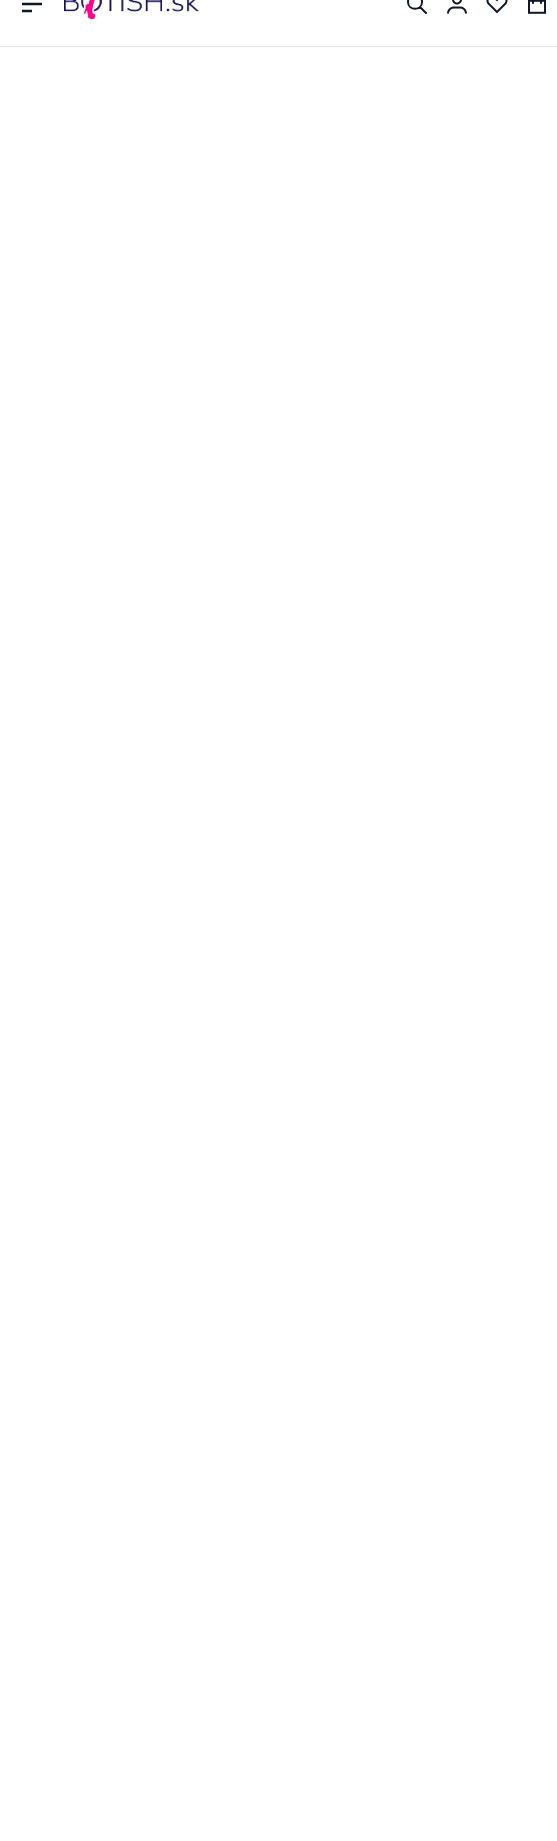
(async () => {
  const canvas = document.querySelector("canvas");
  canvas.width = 557;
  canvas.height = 1841;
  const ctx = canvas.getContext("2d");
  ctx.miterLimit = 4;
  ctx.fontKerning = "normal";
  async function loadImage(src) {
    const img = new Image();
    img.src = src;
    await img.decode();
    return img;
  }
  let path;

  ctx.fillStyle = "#ffffff";
  ctx.fillRect(0, 0, 557, 1841);
  ctx.fillStyle = "#e5e7eb";
  ctx.fillRect(0, 46, 557, 1);
  path = new Path2D("M22-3H42M22 4H42M22 11H32");
  ctx.strokeStyle = "#111827";
  ctx.lineWidth = 2.5;
  ctx.stroke(path);
  ctx.drawImage(await loadImage("img/1.png"), 64, 0, 135, 19);
  path = new Path2D("M426 13L420 7M422 2C422 11 408 11 408 2C408-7 422-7 422 2Z");
  ctx.lineWidth = 2;
  ctx.lineCap = "round";
  ctx.lineJoin = "round";
  ctx.stroke(path);
  ctx.drawImage(await loadImage("img/2.png"), 447, 0, 20, 14);
  ctx.drawImage(await loadImage("img/3.png"), 486, 0, 22, 14);
  ctx.drawImage(await loadImage("img/4.png"), 528, 0, 18, 14);
})();
